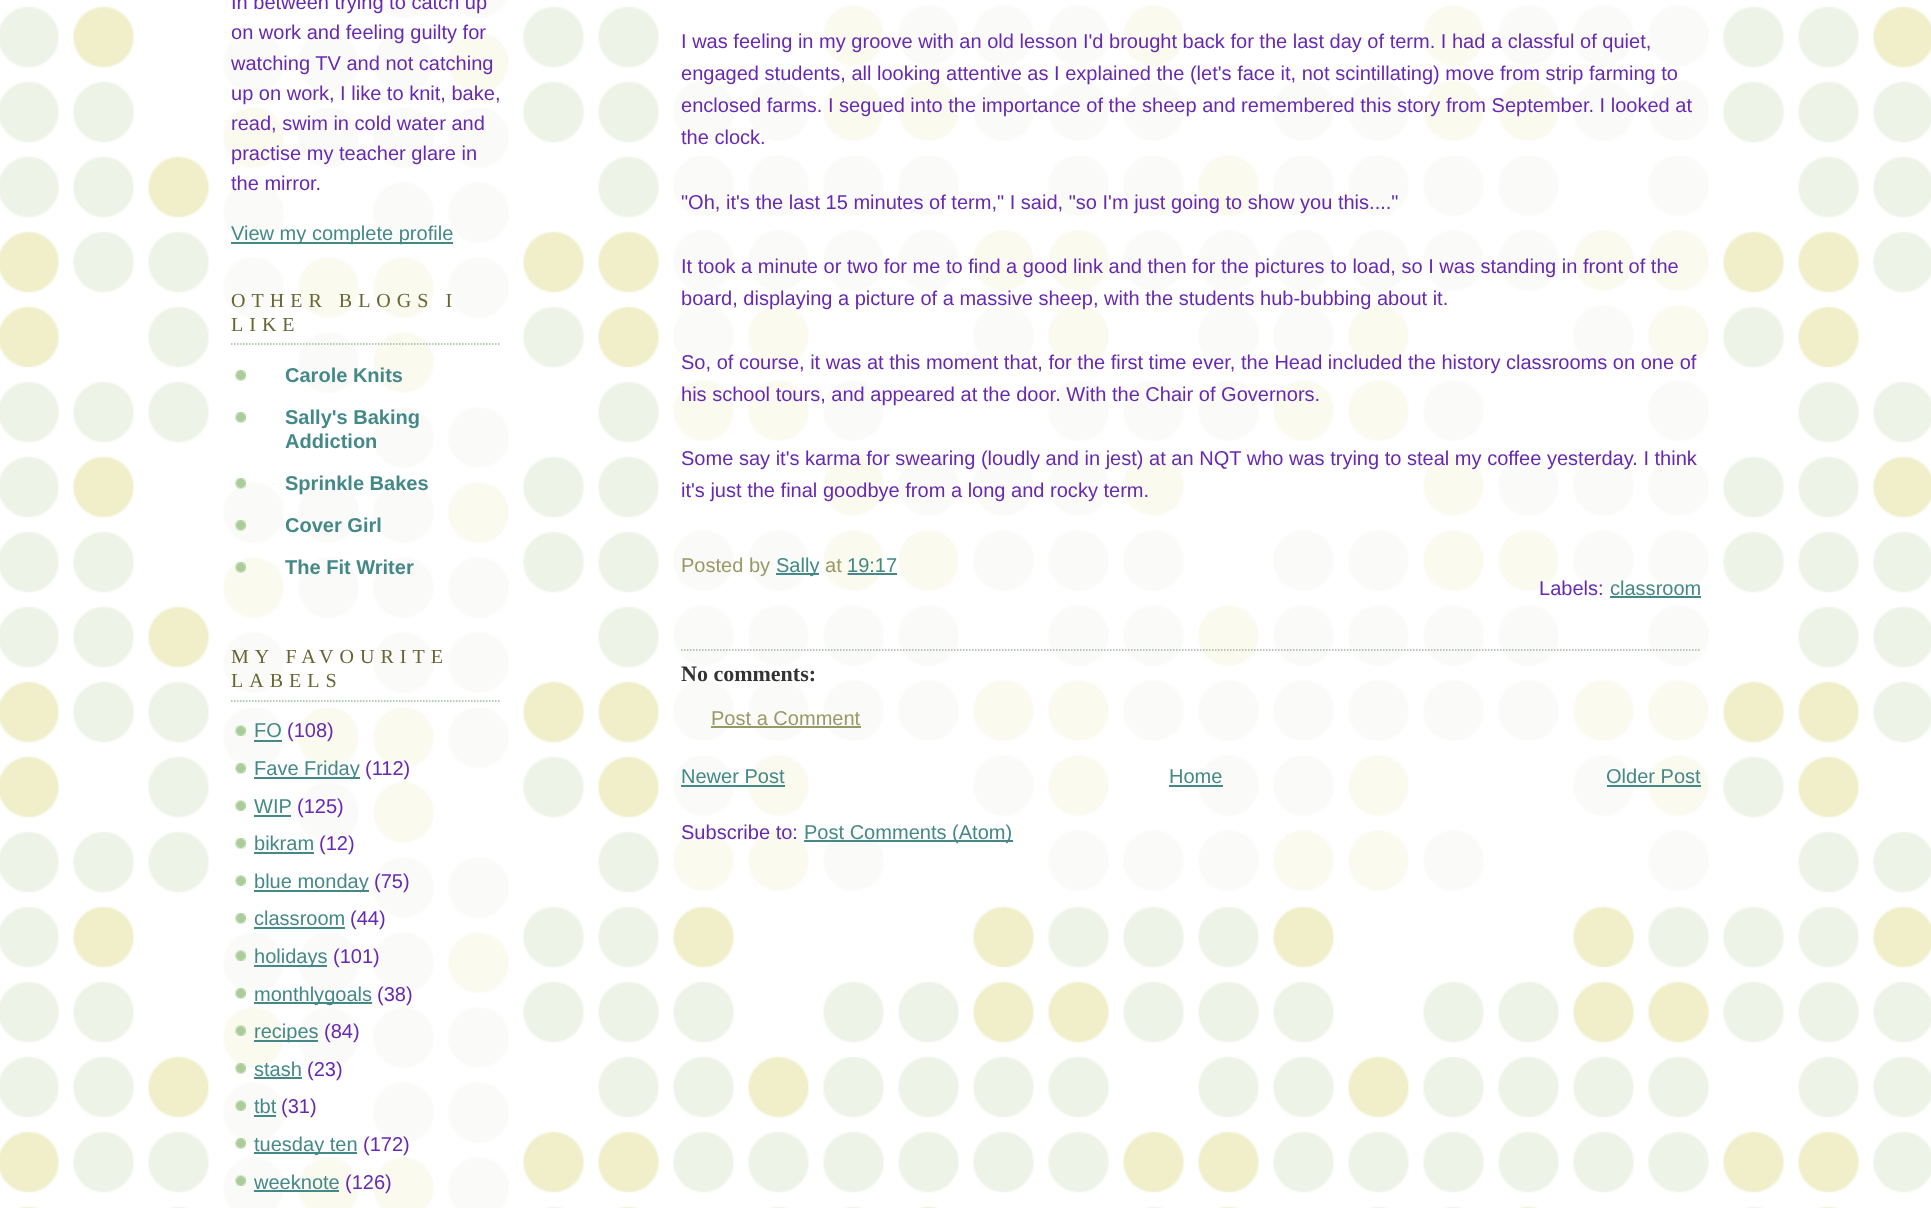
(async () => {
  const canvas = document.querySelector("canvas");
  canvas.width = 1931;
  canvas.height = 1208;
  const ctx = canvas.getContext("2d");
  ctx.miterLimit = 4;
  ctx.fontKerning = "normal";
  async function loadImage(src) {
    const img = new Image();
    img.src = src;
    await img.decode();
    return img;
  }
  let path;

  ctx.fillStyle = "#ffffff";
  ctx.fillRect(0, 0, 1931, 1208);
  ctx.drawImage(await loadImage("img/1.png"), 0, 6, 1931, 1202);
  ctx.drawImage(await loadImage("img/2.png"), 223, 0, 286, 1208);
  ctx.fillStyle = "#448888";
  ctx.fillRect(231, 242, 222, 2);
  path = new Path2D("M231 344H501");
  ctx.strokeStyle = "#99bb99";
  ctx.lineWidth = 1.5;
  ctx.setLineDash([1.5, 1.5]);
  ctx.stroke(path);
  ctx.drawImage(await loadImage("img/3.png"), 235, 370, 11, 11);
  ctx.drawImage(await loadImage("img/3.png"), 235, 412, 11, 11);
  ctx.drawImage(await loadImage("img/4.png"), 235, 478, 11, 11);
  ctx.drawImage(await loadImage("img/5.png"), 235, 520, 11, 11);
  ctx.drawImage(await loadImage("img/6.png"), 235, 562, 11, 11);
  path = new Path2D("M231 701H501");
  ctx.stroke(path);
  ctx.drawImage(await loadImage("img/7.png"), 235, 725, 11, 11);
  ctx.fillRect(254, 740, 28, 2);
  ctx.drawImage(await loadImage("img/8.png"), 235, 763, 11, 11);
  ctx.fillRect(254, 777, 106, 2);
  ctx.drawImage(await loadImage("img/9.png"), 235, 800, 11, 11);
  ctx.fillRect(254, 815, 37, 2);
  ctx.drawImage(await loadImage("img/3.png"), 235, 838, 11, 11);
  ctx.fillRect(254, 852, 60, 2);
  ctx.drawImage(await loadImage("img/9.png"), 235, 875, 11, 11);
  ctx.fillRect(254, 890, 115, 2);
  ctx.drawImage(await loadImage("img/3.png"), 235, 913, 11, 11);
  ctx.fillRect(254, 927, 91, 2);
  ctx.drawImage(await loadImage("img/7.png"), 235, 950, 11, 11);
  ctx.fillRect(254, 965, 73, 2);
  ctx.drawImage(await loadImage("img/8.png"), 235, 988, 11, 11);
  ctx.fillRect(254, 1002, 118, 2);
  ctx.drawImage(await loadImage("img/10.png"), 235, 1025, 11, 11);
  ctx.fillRect(254, 1040, 64, 2);
  ctx.drawImage(await loadImage("img/11.png"), 235, 1063, 11, 11);
  ctx.fillRect(254, 1077, 48, 2);
  ctx.drawImage(await loadImage("img/7.png"), 235, 1100, 11, 11);
  ctx.fillRect(254, 1115, 22, 2);
  ctx.drawImage(await loadImage("img/8.png"), 235, 1138, 11, 11);
  ctx.fillRect(254, 1152, 103, 2);
  ctx.drawImage(await loadImage("img/7.png"), 235, 1175, 11, 11);
  ctx.fillRect(254, 1190, 85, 2);
  ctx.drawImage(await loadImage("img/12.png"), 673, 5, 1036, 888);
  ctx.fillRect(776, 573, 43, 2);
  path = new Path2D("M847.5 574H897.5");
  ctx.strokeStyle = "#448888";
  ctx.stroke(path);
  ctx.fillRect(848, 573, 49, 2);
  ctx.fillRect(1610, 596, 91, 2);
  path = new Path2D("M681 650H1701");
  ctx.strokeStyle = "#99bb99";
  ctx.stroke(path);
  for (const [x, y, w, h, color] of [
    [711, 726, 150, 2, "#999966"],
    [681, 785, 104, 2, "#448888"],
    [1169, 785, 54, 2, "#448888"],
    [1607, 785, 94, 2, "#448888"],
    [804, 840, 209, 2, "#448888"],
  ]) {
    ctx.fillStyle = color;
    ctx.fillRect(x, y, w, h);
  }
  ctx.font = "20.05px Liberation Sans";
  ctx.fillStyle = "#6728b2";
  for (const [text, x, y] of [
    ["In between trying to catch up", 231, 9],
    ["on work and feeling guilty for", 231, 39],
    ["watching TV and not catching", 231, 70],
    ["up on work, I like to knit, bake,", 231, 100],
    ["read, swim in cold water and", 231, 130],
    ["practise my teacher glare in", 231, 160],
    ["the mirror.", 231, 190],
  ]) {
    ctx.fillText(text, x, y);
  }
  ctx.fillStyle = "#448888";
  ctx.fillText("View my complete profile", 231, 240);
  ctx.letterSpacing = "6px";
  ctx.font = "20.05px Liberation Serif";
  ctx.fillStyle = "#666633";
  ctx.fillText("OTHER BLOGS I", 231, 307);
  ctx.fillText("LIKE", 231, 331);
  ctx.letterSpacing = "0px";
  ctx.font = "bold 20.05px Liberation Sans";
  ctx.fillStyle = "#448888";
  for (const [text, x, y] of [
    ["Carole Knits", 285, 382],
    ["Sally's Baking", 285, 424],
    ["Addiction", 285, 448],
    ["Sprinkle Bakes", 285, 490],
    ["Cover Girl", 285, 532],
    ["The Fit Writer", 285, 574],
  ]) {
    ctx.fillText(text, x, y);
  }
  ctx.letterSpacing = "6px";
  ctx.font = "20.05px Liberation Serif";
  ctx.fillStyle = "#666633";
  ctx.fillText("MY FAVOURITE", 231, 663);
  ctx.fillText("LABELS", 231, 687);
  ctx.letterSpacing = "0px";
  ctx.font = "20.05px Liberation Sans";
  ctx.fillStyle = "#448888";
  ctx.fillText("FO", 254, 737);
  ctx.fillStyle = "#6728b2";
  ctx.fillText("(108)", 287, 737);
  ctx.fillStyle = "#448888";
  ctx.fillText("Fave Friday", 254, 775);
  ctx.fillStyle = "#6728b2";
  ctx.fillText("(112)", 365, 775);
  ctx.fillStyle = "#448888";
  ctx.fillText("WIP", 254, 813);
  ctx.fillStyle = "#6728b2";
  ctx.fillText("(125)", 297, 813);
  ctx.fillStyle = "#448888";
  ctx.fillText("bikram", 254, 850);
  ctx.fillStyle = "#6728b2";
  ctx.fillText("(12)", 319, 850);
  ctx.fillStyle = "#448888";
  ctx.fillText("blue monday", 254, 888);
  ctx.fillStyle = "#6728b2";
  ctx.fillText("(75)", 374, 888);
  ctx.fillStyle = "#448888";
  ctx.fillText("classroom", 254, 925);
  ctx.fillStyle = "#6728b2";
  ctx.fillText("(44)", 350, 925);
  ctx.fillStyle = "#448888";
  ctx.fillText("holidays", 254, 963);
  ctx.fillStyle = "#6728b2";
  ctx.fillText("(101)", 333, 963);
  ctx.fillStyle = "#448888";
  ctx.fillText("monthlygoals", 254, 1001);
  ctx.fillStyle = "#6728b2";
  ctx.fillText("(38)", 377, 1001);
  ctx.fillStyle = "#448888";
  ctx.fillText("recipes", 254, 1038);
  ctx.fillStyle = "#6728b2";
  ctx.fillText("(84)", 324, 1038);
  ctx.fillStyle = "#448888";
  ctx.fillText("stash", 254, 1076);
  ctx.fillStyle = "#6728b2";
  ctx.fillText("(23)", 307, 1076);
  ctx.fillStyle = "#448888";
  ctx.fillText("tbt", 254, 1113);
  ctx.fillStyle = "#6728b2";
  ctx.fillText("(31)", 281, 1113);
  ctx.fillStyle = "#448888";
  ctx.fillText("tuesday ten", 254, 1151);
  ctx.fillStyle = "#6728b2";
  ctx.fillText("(172)", 363, 1151);
  ctx.fillStyle = "#448888";
  ctx.fillText("weeknote", 254, 1189);
  ctx.fillStyle = "#6728b2";
  for (const [text, x, y] of [
    ["(126)", 345, 1189],
    ["I was feeling in my groove with an old lesson I'd brought back for the last day of term. I had a classful of quiet,", 681, 48],
    ["engaged students, all looking attentive as I explained the (let's face it, not scintillating) move from strip farming to", 681, 80],
    ["enclosed farms. I segued into the importance of the sheep and remembered this story from September. I looked at", 681, 112],
    ["the clock.", 681, 144],
    ["\"Oh, it's the last 15 minutes of term,\" I said, \"so I'm just going to show you this....\"", 681, 209],
    ["It took a minute or two for me to find a good link and then for the pictures to load, so I was standing in front of the", 681, 273],
    ["board, displaying a picture of a massive sheep, with the students hub-bubbing about it.", 681, 305],
    ["So, of course, it was at this moment that, for the first time ever, the Head included the history classrooms on one of", 681, 369],
    ["his school tours, and appeared at the door. With the Chair of Governors.", 681, 401],
    ["Some say it's karma for swearing (loudly and in jest) at an NQT who was trying to steal my coffee yesterday. I think", 681, 465],
    ["it's just the final goodbye from a long and rocky term.", 681, 497],
  ]) {
    ctx.fillText(text, x, y);
  }
  ctx.fillStyle = "#999966";
  ctx.fillText("Posted by", 681, 572);
  ctx.fillStyle = "#448888";
  ctx.fillText("Sally", 776, 572);
  ctx.fillStyle = "#999966";
  ctx.fillText("at", 825, 572);
  ctx.fillStyle = "#448888";
  ctx.fillText("19:17", 847, 572);
  ctx.fillStyle = "#6728b2";
  ctx.fillText("Labels:", 1539, 595);
  ctx.fillStyle = "#448888";
  ctx.fillText("classroom", 1610, 595);
  ctx.font = "bold 22px Liberation Serif";
  ctx.fillStyle = "#333333";
  ctx.fillText("No comments:", 681, 681);
  ctx.font = "20.05px Liberation Sans";
  ctx.fillStyle = "#999966";
  ctx.fillText("Post a Comment", 711, 725);
  ctx.fillStyle = "#448888";
  for (const [text, x, y] of [
    ["Newer Post", 681, 783],
    ["Home", 1169, 783],
    ["Older Post", 1606, 783],
  ]) {
    ctx.fillText(text, x, y);
  }
  ctx.fillStyle = "#6728b2";
  ctx.fillText("Subscribe to:", 681, 839);
  ctx.fillStyle = "#448888";
  ctx.fillText("Post Comments (Atom)", 804, 839);
})();
